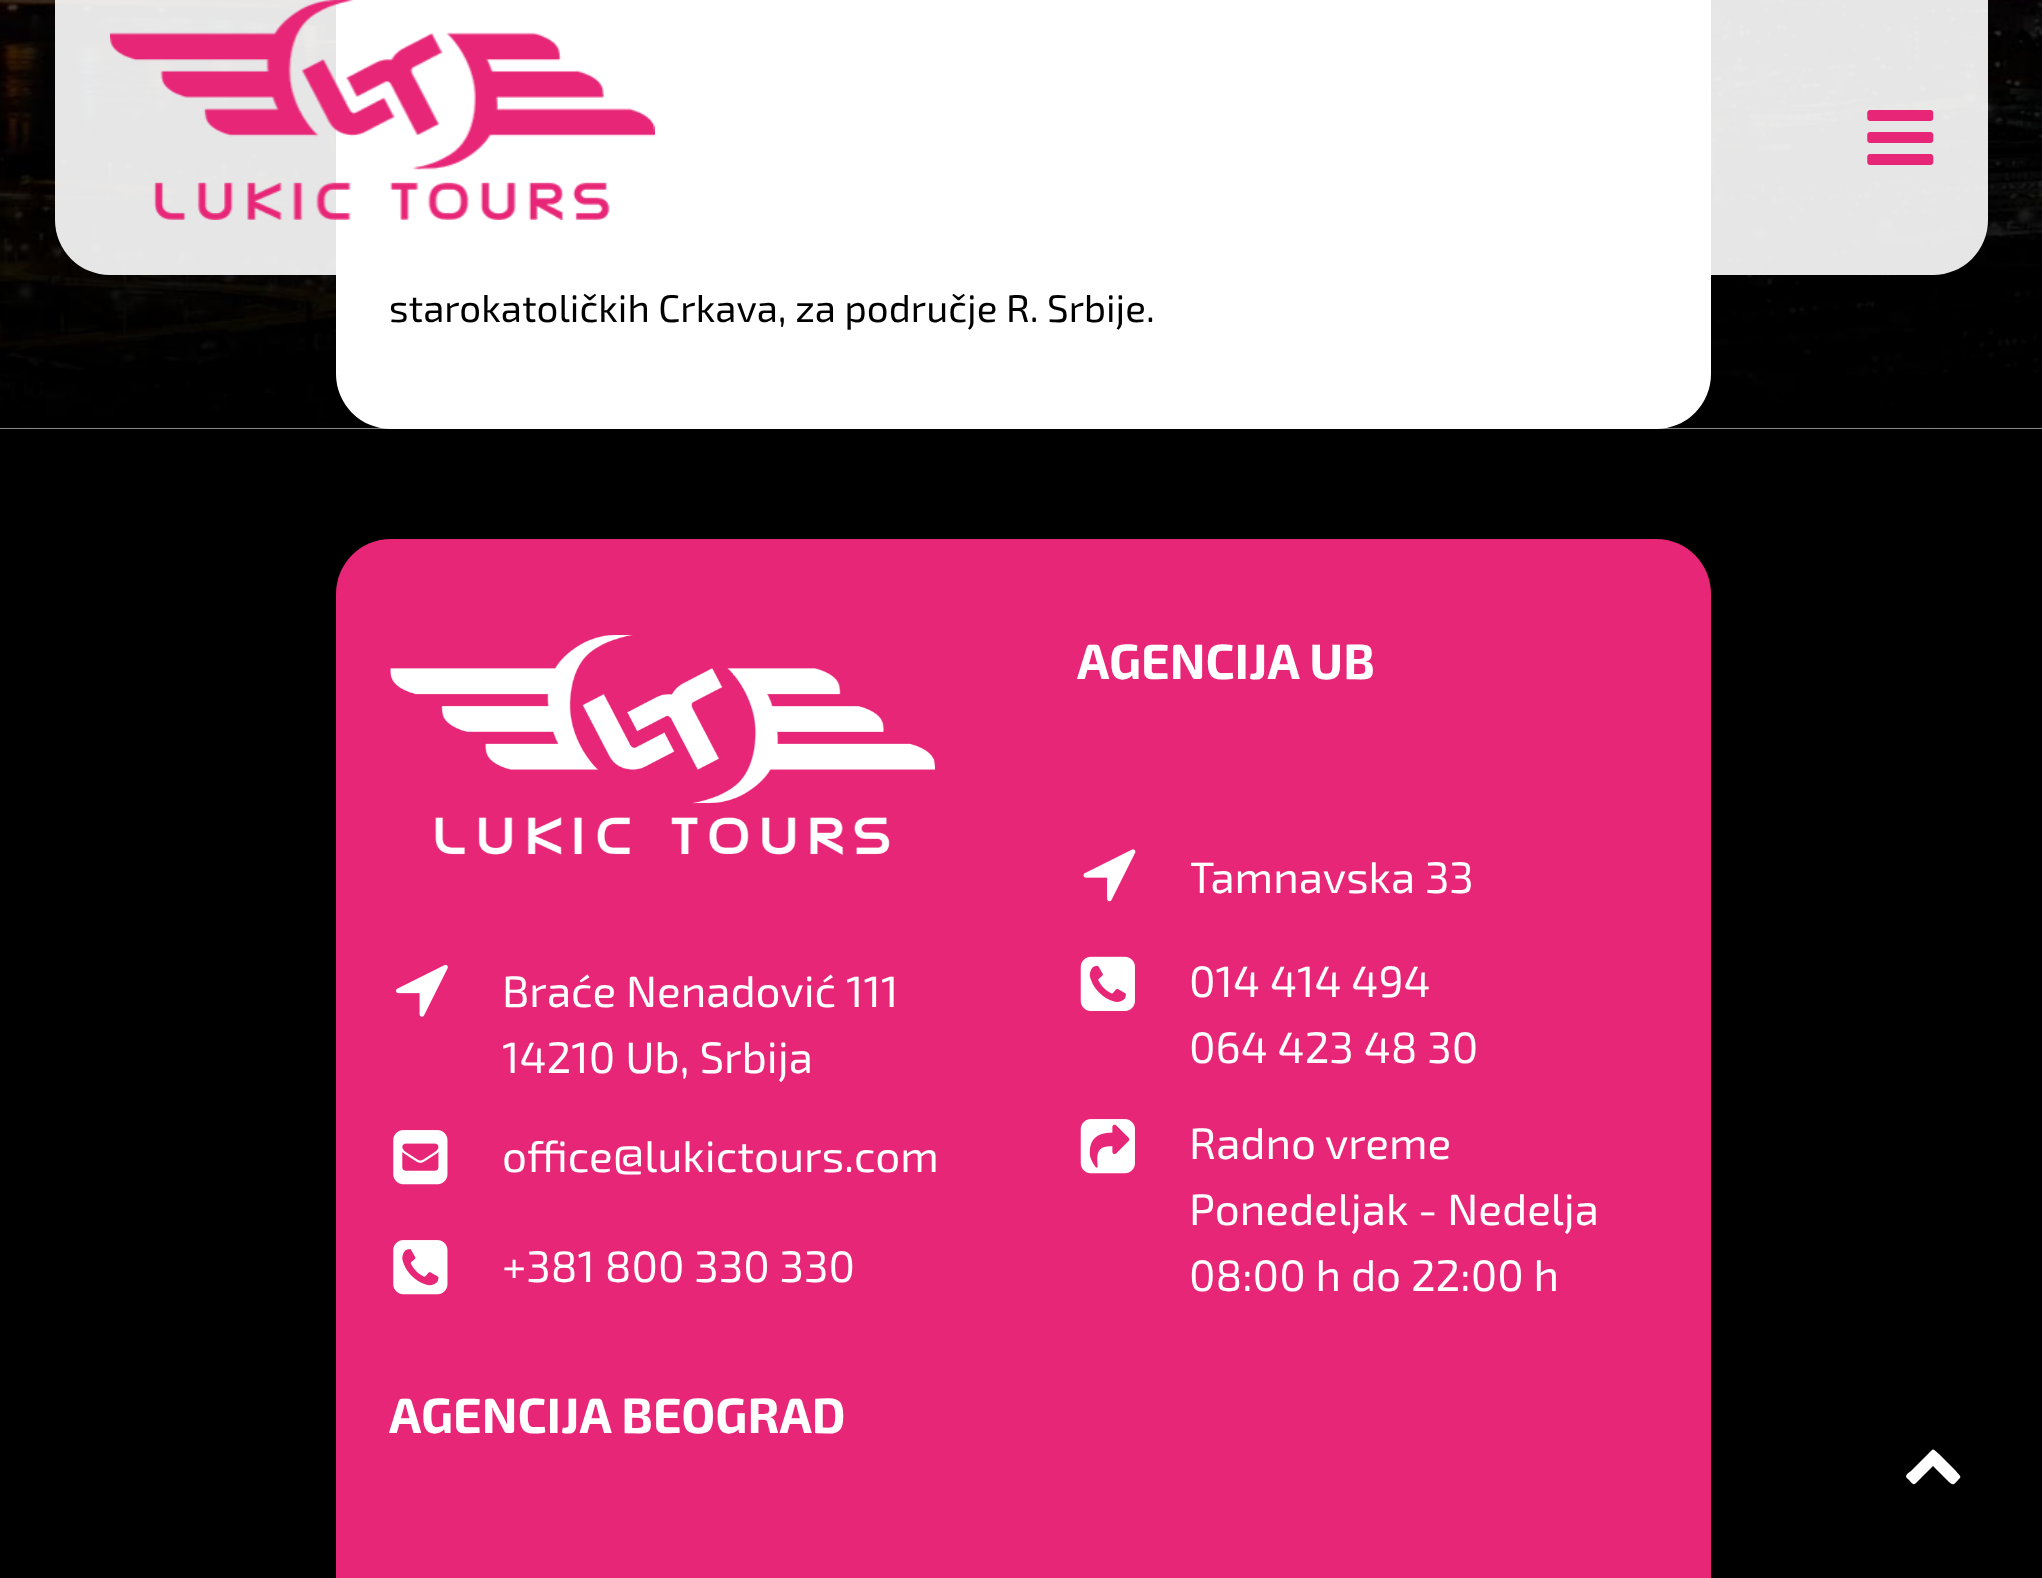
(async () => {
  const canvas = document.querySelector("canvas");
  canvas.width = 2042;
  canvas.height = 1578;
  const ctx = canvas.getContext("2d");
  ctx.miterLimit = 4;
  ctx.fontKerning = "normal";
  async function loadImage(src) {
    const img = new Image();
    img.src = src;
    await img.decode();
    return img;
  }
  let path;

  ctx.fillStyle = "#ffffff";
  ctx.fillRect(0, 0, 2042, 1578);
  ctx.drawImage(await loadImage("img/3.png"), 0, 0, 2042, 429);
  ctx.beginPath();
  ctx.roundRect(336, -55, 1375, 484, 55);
  ctx.fill();
  ctx.fillStyle = "rgba(255, 255, 255, 0.9)";
  ctx.beginPath();
  ctx.roundRect(55, 0, 1933, 275, [0, 0, 55, 55]);
  ctx.fill();
  ctx.drawImage(await loadImage("img/1.png"), 110, 0, 545, 220);
  ctx.drawImage(await loadImage("img/2.png"), 1867, 110, 67, 55);
  ctx.fillStyle = "#000000";
  ctx.fillRect(0, 429, 2042, 1149);
  ctx.fillStyle = "#e72677";
  path = new Path2D("M391 539H1656C1686.5 539 1711 563.5 1711 594V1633H336V594C336 563.5 360.5 539 391 539Z");
  ctx.fill(path);
  ctx.drawImage(await loadImage("img/4.png"), 390, 635, 545, 220);
  ctx.drawImage(await loadImage("img/5.png"), 396, 964, 52, 53);
  ctx.drawImage(await loadImage("img/6.png"), 393, 1130, 55, 55);
  ctx.drawImage(await loadImage("img/7.png"), 393, 1240, 55, 55);
  ctx.drawImage(await loadImage("img/8.png"), 1083, 849, 53, 53);
  ctx.drawImage(await loadImage("img/9.png"), 1080, 956, 55, 55);
  ctx.drawImage(await loadImage("img/10.png"), 1080, 1119, 55, 55);
  ctx.fillStyle = "#ffffff";
  path = new Path2D("M1960 1478C1954 1484 1954 1487 1948 1481L1933 1466L1918 1481C1913 1486 1914 1485 1908 1479C1904 1476 1907 1474 1911 1471L1928 1454C1934 1448 1932 1448 1939 1454L1956 1471C1956 1472 1962 1476 1960 1478Z");
  ctx.fill(path);
  ctx.font = "38.5px 'Exo 2'";
  ctx.fillStyle = "#000000";
  ctx.fillText("starokatoličkih Crkava, za područje R. Srbije.", 389, 322);
  ctx.font = "44px 'Exo 2'";
  ctx.fillStyle = "#ffffff";
  for (const [text, x, y] of [
    ["Braće Nenadović 111", 502, 1007],
    ["14210 Ub, Srbija", 502, 1073],
    ["office@lukictours.com", 502, 1172],
    ["+381 800 330 330", 502, 1282],
  ]) {
    ctx.fillText(text, x, y);
  }
  ctx.font = "bold 49.5px 'Exo 2'";
  ctx.fillText("AGENCIJA UB", 1077, 679);
  ctx.save();
  ctx.beginPath();
  ctx.rect(1191, 839, 465, 115);
  ctx.clip();
  ctx.font = "44px 'Exo 2'";
  ctx.fillText("Tamnavska 33", 1189, 893);
  ctx.restore();
  ctx.font = "44px 'Exo 2'";
  for (const [text, x, y] of [
    ["014 414 494", 1189, 997],
    ["064 423 48 30", 1189, 1063],
    ["Radno vreme", 1189, 1159],
    ["Ponedeljak - Nedelja", 1189, 1225],
    ["08:00 h do 22:00 h", 1189, 1291],
  ]) {
    ctx.fillText(text, x, y);
  }
  ctx.font = "bold 49.5px 'Exo 2'";
  ctx.fillText("AGENCIJA BEOGRAD", 389, 1433);
})();
